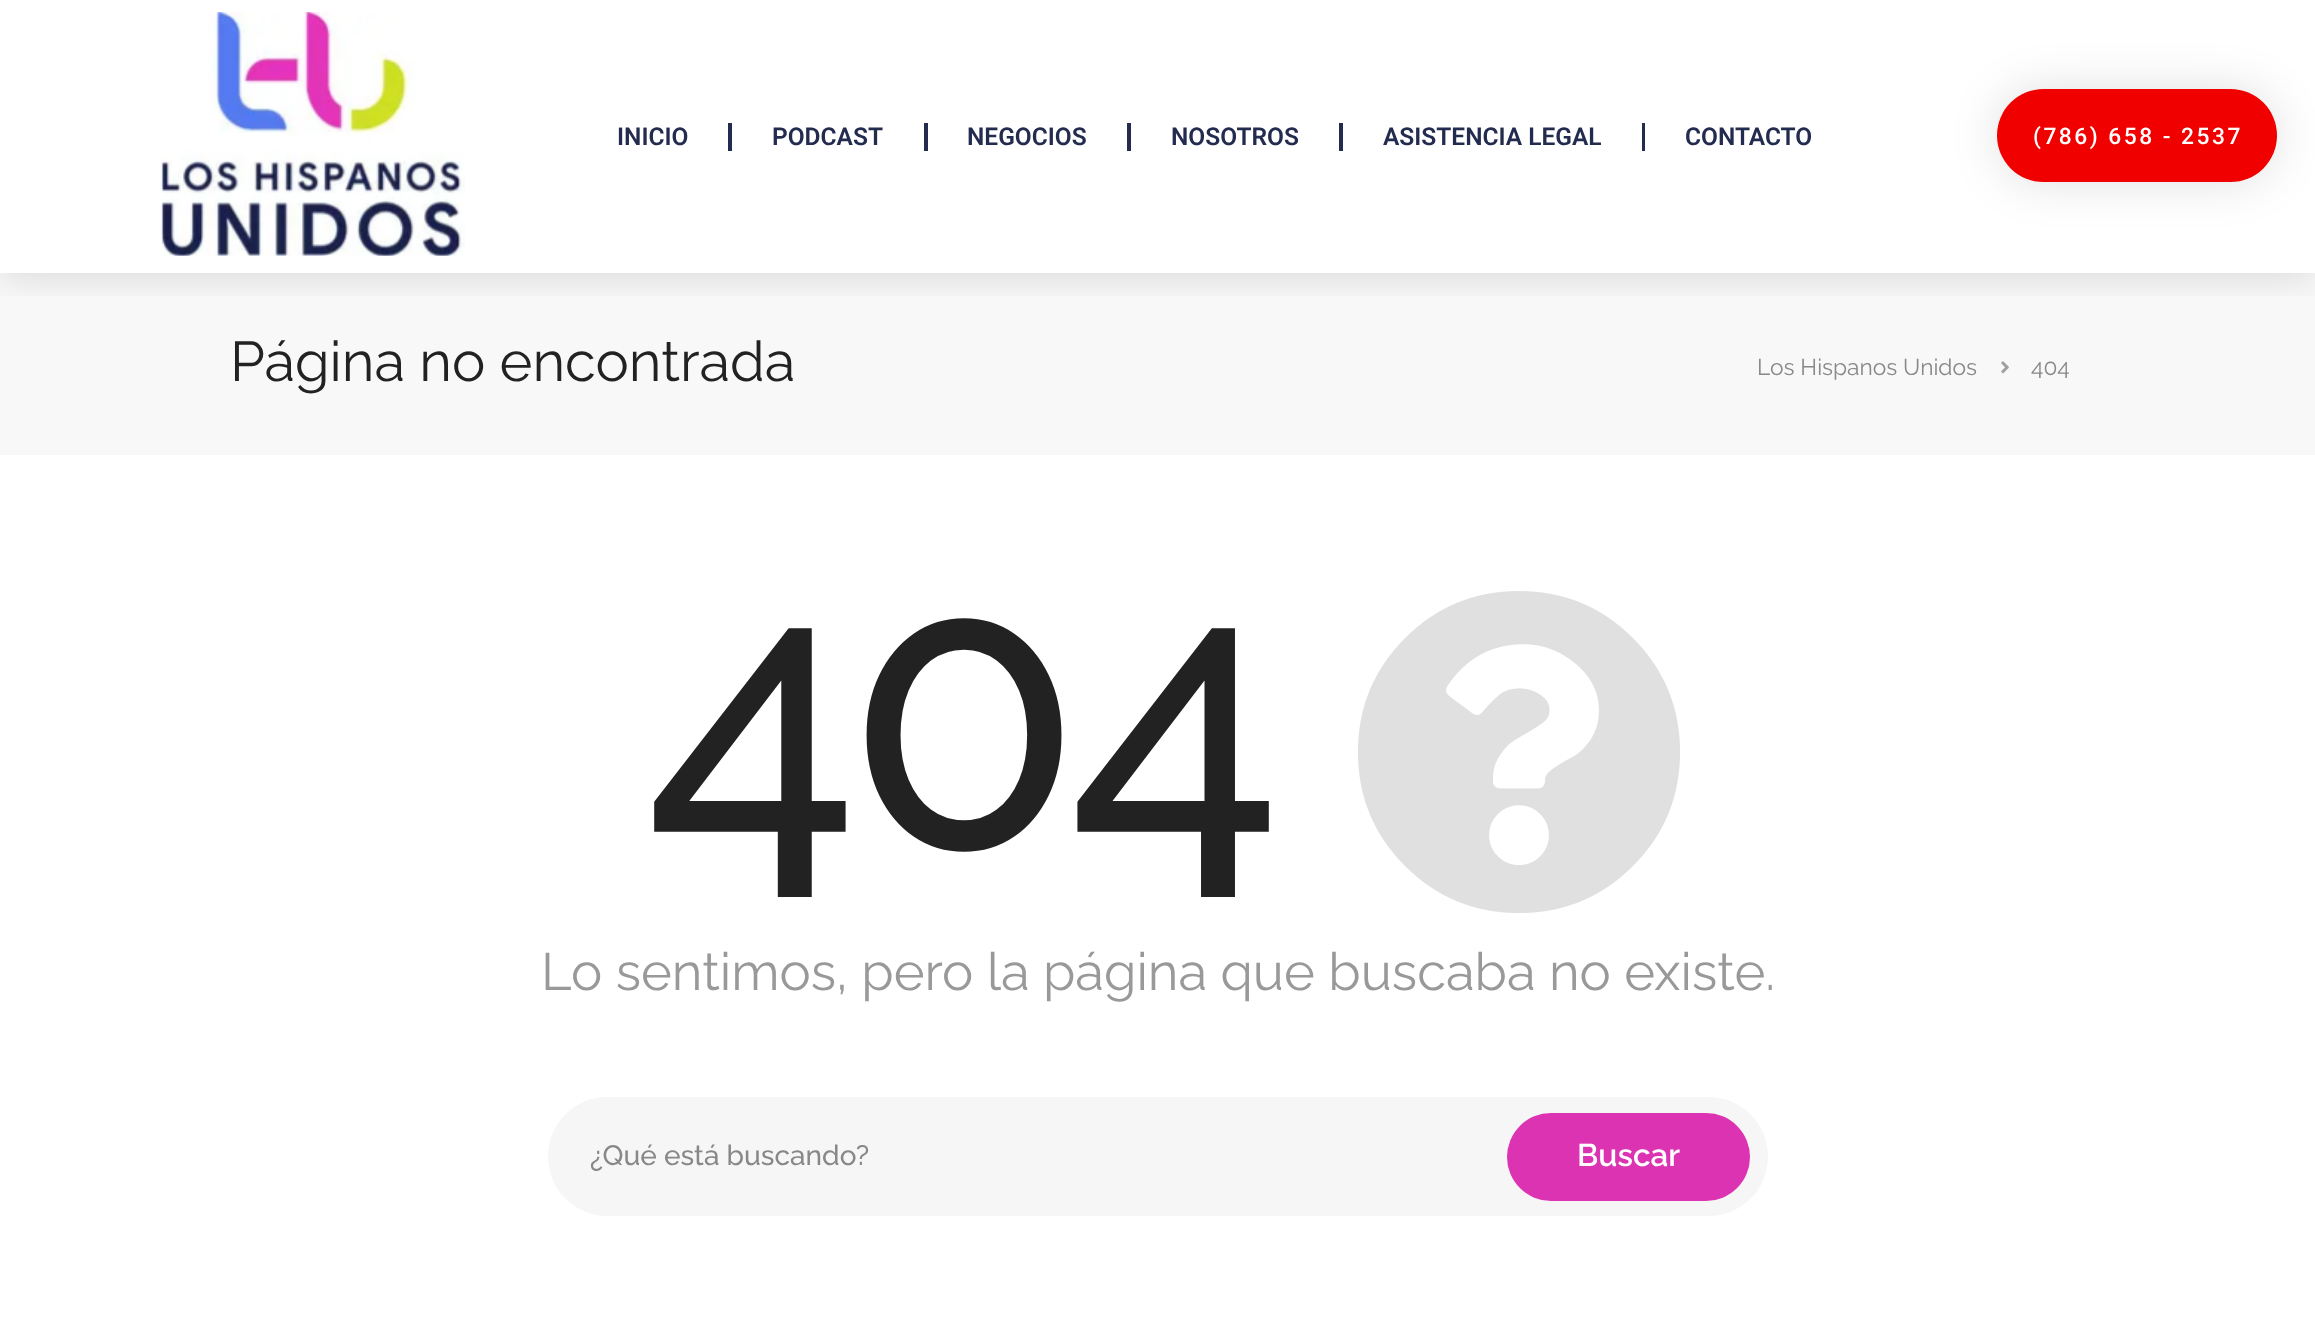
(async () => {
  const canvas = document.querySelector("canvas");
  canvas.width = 2315;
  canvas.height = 1319;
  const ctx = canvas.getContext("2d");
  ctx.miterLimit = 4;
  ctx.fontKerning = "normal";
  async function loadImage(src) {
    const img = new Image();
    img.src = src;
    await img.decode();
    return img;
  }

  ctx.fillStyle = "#ffffff";
  ctx.fillRect(0, 0, 2315, 1319);
  ctx.fillStyle = "#f8f8f8";
  ctx.fillRect(0, 273, 2315, 182);
  ctx.save();
  ctx.beginPath();
  ctx.rect(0, 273, 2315, 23);
  ctx.clip();
  ctx.fillStyle = "rgba(0, 0, 0, 0.15)";
  ctx.filter = "blur(21px)";
  ctx.beginPath();
  ctx.rect(0, 0, 2315, 273);
  ctx.fill();
  ctx.filter = "none";
  ctx.restore();
  ctx.drawImage(await loadImage("img/1.png"), 160, 12, 305, 244);
  for (const [x, y, w, h, color] of [
    [728, 123, 4, 28, "#232b4f"],
    [924, 123, 4, 28, "#232b4f"],
    [1127, 123, 4, 28, "#232b4f"],
    [1339, 123, 4, 28, "#232b4f"],
    [1642, 123, 3, 28, "#232b4f"],
  ]) {
    ctx.fillStyle = color;
    ctx.fillRect(x, y, w, h);
  }
  ctx.fillStyle = "rgba(0, 0, 0, 0.12)";
  ctx.filter = "blur(23.5px)";
  ctx.beginPath();
  ctx.roundRect(1997, 89, 280, 93, 46.5);
  ctx.fill();
  ctx.filter = "none";
  ctx.fillStyle = "#f10000";
  ctx.beginPath();
  ctx.roundRect(1997, 89, 280, 93, 46.5);
  ctx.fill();
  ctx.drawImage(await loadImage("img/2.png"), 2001, 361, 8, 13);
  ctx.drawImage(await loadImage("img/3.png"), 1358, 591, 322, 322);
  ctx.fillStyle = "#f6f6f6";
  ctx.beginPath();
  ctx.roundRect(548, 1097, 1220, 119, 59.5);
  ctx.fill();
  ctx.fillStyle = "#dc33b3";
  ctx.beginPath();
  ctx.roundRect(1507, 1113, 243, 88, 44);
  ctx.fill();
  ctx.font = "600 24.5px Roboto";
  ctx.fillStyle = "#232b4f";
  for (const [text, x, y] of [
    ["INICIO", 617, 145],
    ["PODCAST", 772, 145],
    ["NEGOCIOS", 967, 145],
    ["NOSOTROS", 1171, 145],
    ["ASISTENCIA LEGAL", 1383, 145],
    ["CONTACTO", 1685, 145],
  ]) {
    ctx.fillText(text, x, y);
  }
  ctx.letterSpacing = "2.5px";
  ctx.font = "500 22.75px Roboto";
  ctx.fillStyle = "#ffffff";
  ctx.fillText("(786) 658 - 2537", 2033, 144);
  ctx.letterSpacing = "0px";
  ctx.font = "100 56px Raleway";
  ctx.fillStyle = "#222222";
  ctx.fillText("Página no encontrada", 230, 381);
  ctx.font = "100 22.75px Raleway";
  ctx.fillStyle = "#888888";
  ctx.fillText("Los Hispanos Unidos", 1757, 375);
  ctx.fillText("404", 2031, 375);
  ctx.letterSpacing = "-14px";
  ctx.font = "500 385px Raleway";
  ctx.fillStyle = "#222222";
  ctx.fillText("404", 645, 848);
  ctx.letterSpacing = "0px";
  ctx.font = "100 52.5px Raleway";
  ctx.fillStyle = "#999999";
  ctx.fillText("Lo sentimos, pero la página que buscaba no existe.", 541, 990);
  ctx.font = "500 28px Raleway";
  ctx.fillStyle = "#888888";
  ctx.fillText("¿Qué está buscando?", 590, 1165);
  ctx.font = "600 31.5px Raleway";
  ctx.fillStyle = "#ffffff";
  ctx.fillText("Buscar", 1577, 1166);
})();
